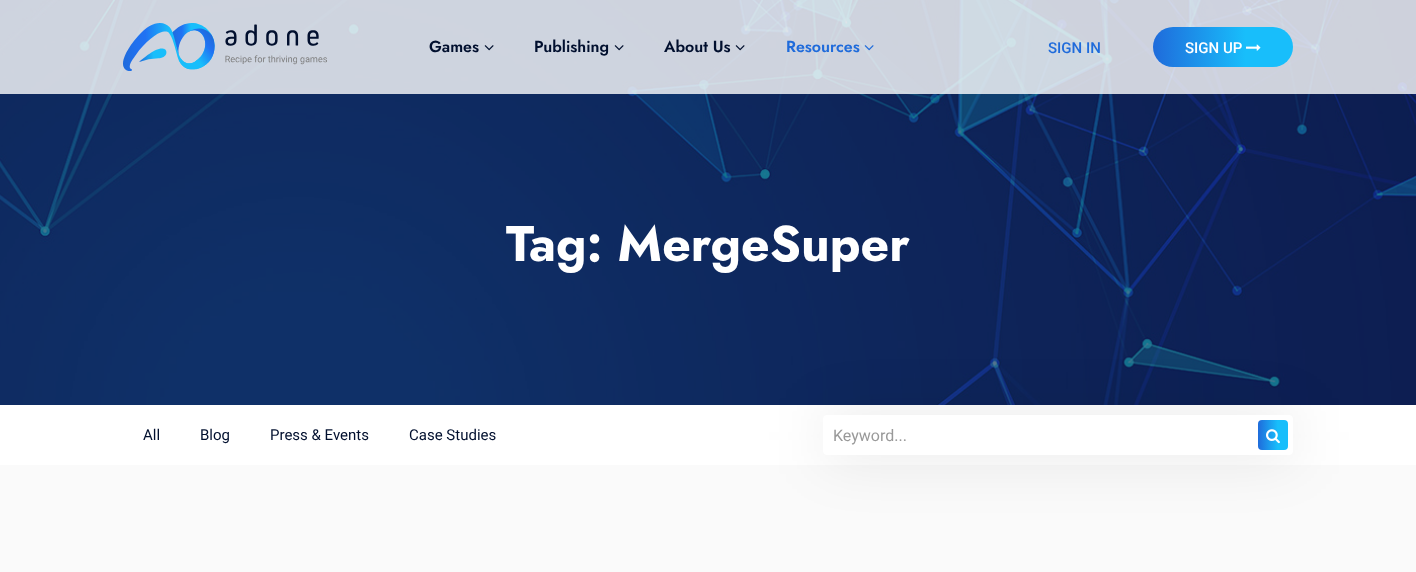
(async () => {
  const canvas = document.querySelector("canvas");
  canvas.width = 1416;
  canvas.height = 572;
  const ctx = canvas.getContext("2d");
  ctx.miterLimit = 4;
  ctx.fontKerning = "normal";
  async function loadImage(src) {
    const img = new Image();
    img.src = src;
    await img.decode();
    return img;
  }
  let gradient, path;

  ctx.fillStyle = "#ffffff";
  ctx.fillRect(0, 0, 1416, 572);
  ctx.drawImage(await loadImage("img/7.png"), 0, 0, 1416, 405);
  ctx.fillStyle = "rgba(255, 255, 255, 0.8)";
  ctx.fillRect(0, 0, 1416, 94);
  ctx.drawImage(await loadImage("img/1.png"), 123, 23, 204, 48);
  ctx.drawImage(await loadImage("img/2.png"), 484, 45, 10, 6);
  ctx.drawImage(await loadImage("img/3.png"), 614, 45, 10, 6);
  ctx.drawImage(await loadImage("img/4.png"), 735, 45, 10, 6);
  ctx.drawImage(await loadImage("img/5.png"), 864, 45, 10, 6);
  gradient = ctx.createLinearGradient(1153, 47, 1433, 47);
  gradient.addColorStop(0, "#1f6bdb");
  gradient.addColorStop(0.33, "#18befb");
  gradient.addColorStop(0.67, "#18befb");
  gradient.addColorStop(1, "#1f6bdb");
  ctx.fillStyle = gradient;
  ctx.beginPath();
  ctx.roundRect(1153, 27, 140, 40, 20);
  ctx.fill();
  ctx.drawImage(await loadImage("img/6.png"), 1246, 44, 15, 7);
  ctx.fillStyle = "#fafafa";
  ctx.fillRect(0, 465, 1416, 107);
  ctx.save();
  path = new Path2D("M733 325H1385V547H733ZM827 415H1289C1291 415 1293 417 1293 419V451C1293 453 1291 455 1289 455H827C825 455 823 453 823 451V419C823 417 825 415 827 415Z");
  ctx.clip(path, "evenodd");
  ctx.fillStyle = "rgba(0, 0, 0, 0.1)";
  ctx.filter = "blur(30px)";
  ctx.beginPath();
  ctx.roundRect(824, 416, 470, 40, 4);
  ctx.fill();
  ctx.filter = "none";
  ctx.restore();
  gradient = ctx.createLinearGradient(1258, 435, 1318, 435);
  gradient.addColorStop(0, "#1f6bdb");
  gradient.addColorStop(0.33, "#18befb");
  gradient.addColorStop(0.67, "#18befb");
  gradient.addColorStop(1, "#1f6bdb");
  ctx.fillStyle = gradient;
  ctx.beginPath();
  ctx.roundRect(1258, 420, 30, 30, 4);
  ctx.fill();
  ctx.drawImage(await loadImage("img/8.png"), 1266, 429, 14, 15);
  ctx.font = "600 16px Jost";
  ctx.fillStyle = "#010f2e";
  for (const [text, x, y] of [
    ["Games", 429, 52],
    ["Publishing", 534, 52],
    ["About Us", 664, 52],
  ]) {
    ctx.fillText(text, x, y);
  }
  ctx.fillStyle = "#1f6bdb";
  ctx.fillText("Resources", 786, 52);
  ctx.font = "500 15px Roboto";
  ctx.fillText("SIGN IN", 1048, 53);
  ctx.fillStyle = "#ffffff";
  ctx.fillText("SIGN UP", 1185, 53);
  ctx.font = "bold 50px Jost";
  ctx.fillText("Tag: MergeSuper", 506, 261);
  ctx.font = "15px Roboto";
  ctx.fillStyle = "#010f2e";
  for (const [text, x, y] of [
    ["All", 143, 440],
    ["Blog", 200, 440],
    ["Press & Events", 270, 440],
    ["Case Studies", 409, 440],
  ]) {
    ctx.fillText(text, x, y);
  }
  ctx.font = "16px Roboto";
  ctx.fillStyle = "#999999";
  ctx.fillText("Keyword...", 833, 441);
})();
